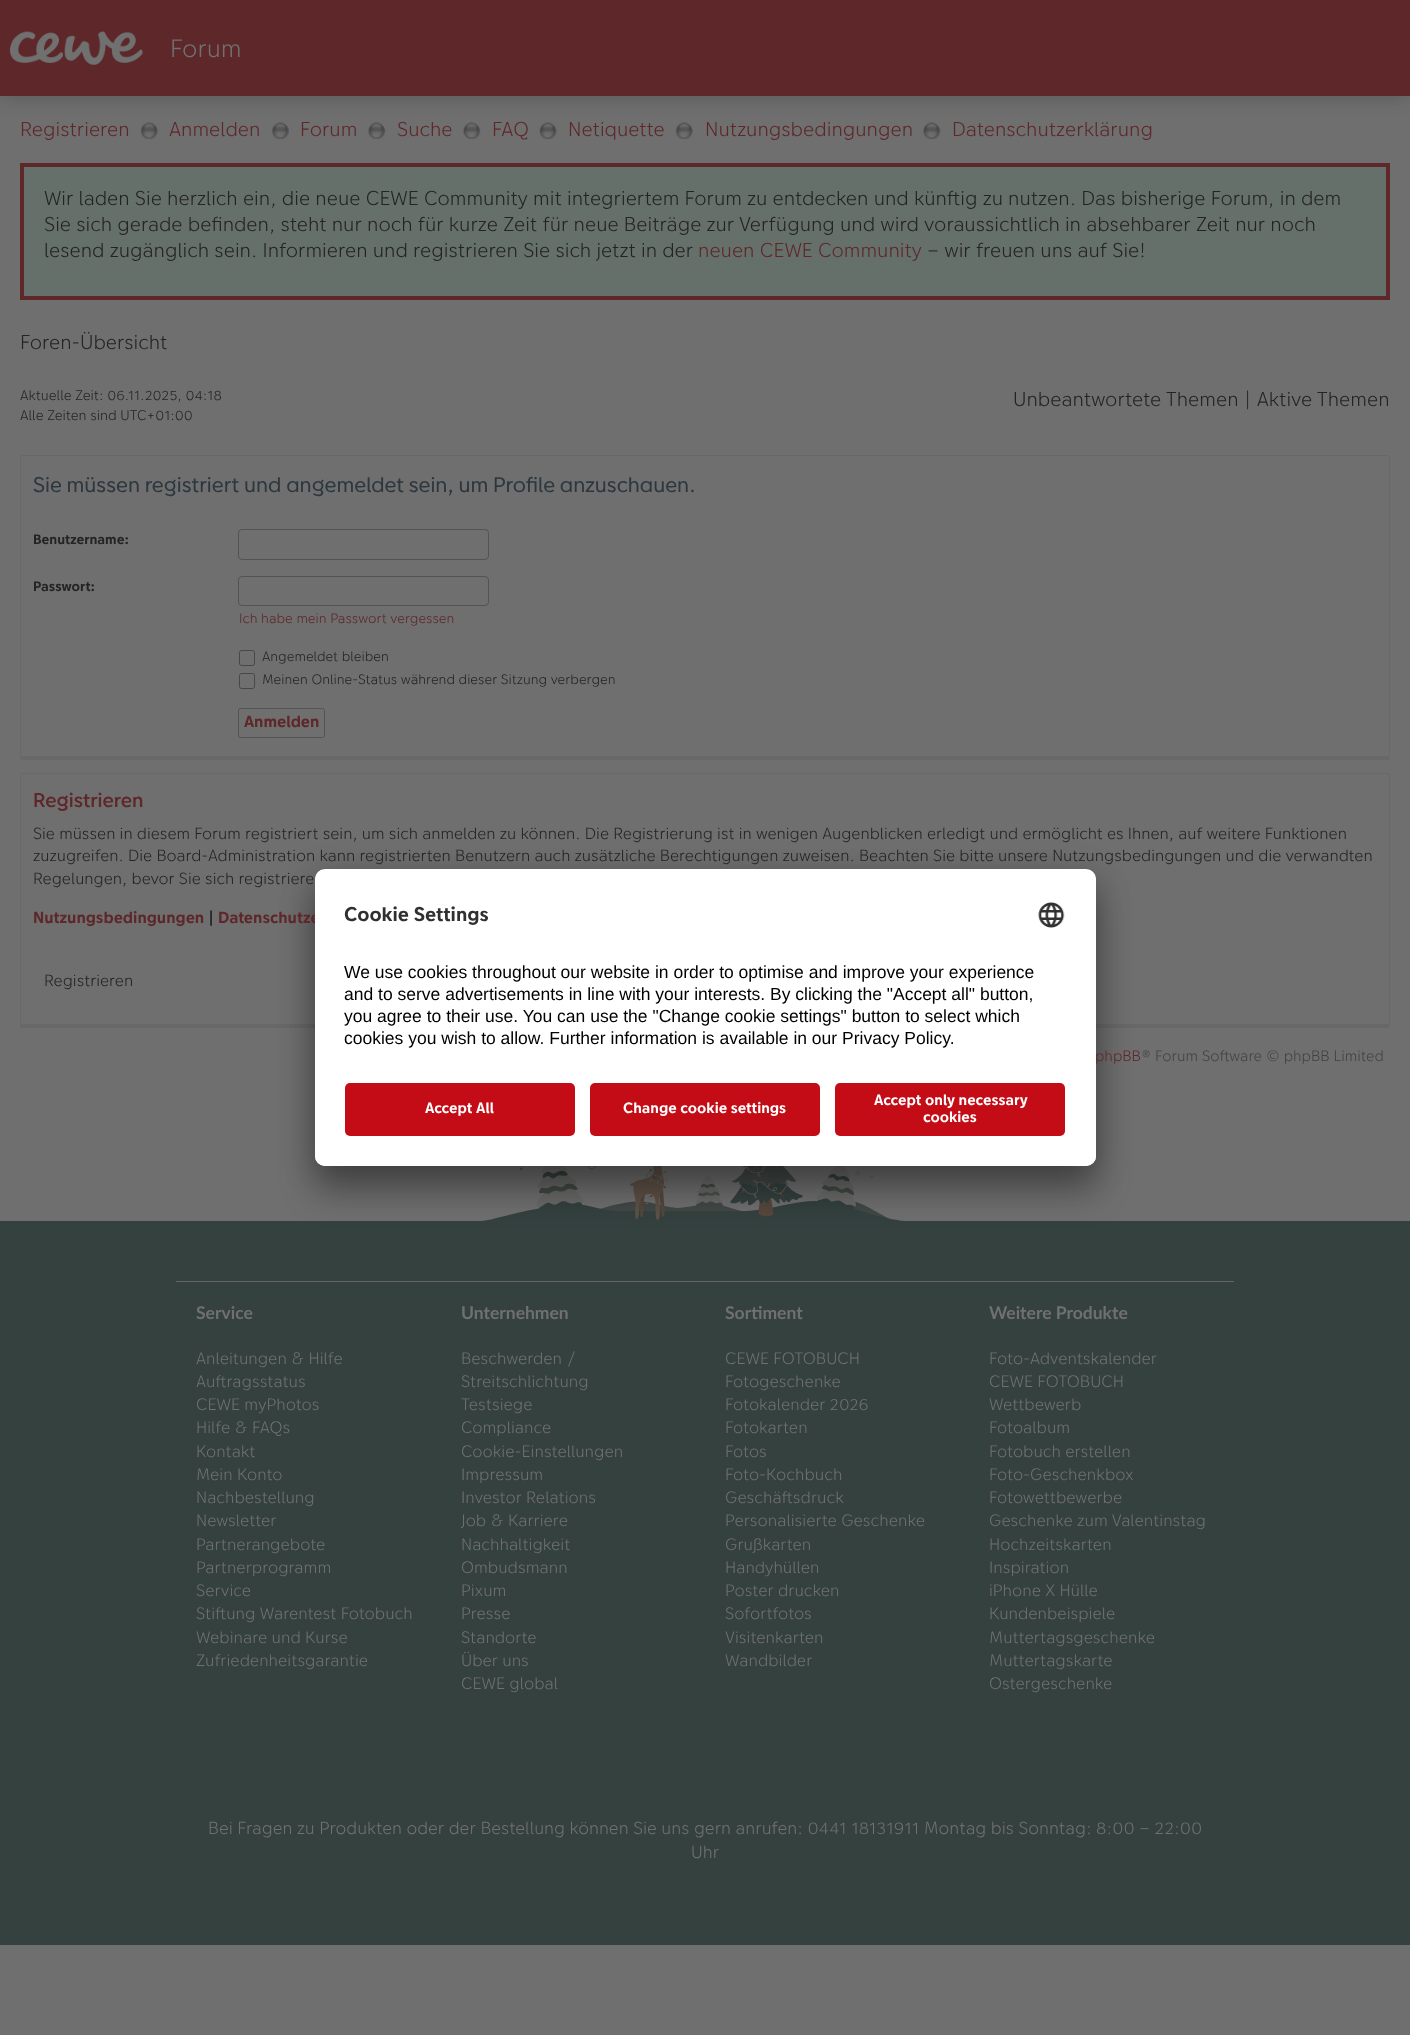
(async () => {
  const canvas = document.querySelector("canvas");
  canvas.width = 1410;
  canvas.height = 2035;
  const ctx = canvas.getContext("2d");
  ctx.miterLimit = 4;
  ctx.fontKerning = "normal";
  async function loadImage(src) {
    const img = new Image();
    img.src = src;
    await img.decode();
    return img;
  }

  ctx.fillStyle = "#6f6f6f";
  ctx.fillRect(0, 0, 1410, 2035);
  ctx.drawImage(await loadImage("img/2.png"), 140, 122, 18, 17);
  ctx.drawImage(await loadImage("img/3.png"), 271, 122, 18, 17);
  ctx.drawImage(await loadImage("img/4.png"), 367, 122, 19, 17);
  ctx.drawImage(await loadImage("img/5.png"), 462, 122, 19, 17);
  ctx.drawImage(await loadImage("img/6.png"), 539, 122, 18, 17);
  ctx.drawImage(await loadImage("img/7.png"), 675, 122, 18, 17);
  ctx.drawImage(await loadImage("img/4.png"), 922, 122, 19, 17);
  ctx.fillStyle = "rgba(36, 36, 36, 0.33)";
  ctx.filter = "blur(10px)";
  ctx.beginPath();
  ctx.rect(0, 0, 1410, 96);
  ctx.fill();
  ctx.filter = "none";
  ctx.fillStyle = "#5e272a";
  ctx.fillRect(0, 0, 1410, 96);
  ctx.drawImage(await loadImage("img/1.png"), 10, 31, 133, 34);
  ctx.fillStyle = "#66706b";
  ctx.beginPath();
  ctx.rect(22, 165, 1366, 133);
  ctx.fill();
  ctx.strokeStyle = "#5e272a";
  ctx.lineWidth = 4;
  ctx.stroke();
  ctx.beginPath();
  ctx.roundRect(20.5, 455.5, 1369, 304, 2);
  ctx.strokeStyle = "#686868";
  ctx.lineWidth = 1;
  ctx.stroke();
  ctx.fillStyle = "#686868";
  ctx.fillRect(21, 756, 1368, 3);
  ctx.beginPath();
  ctx.roundRect(238.5, 529.5, 250, 30, 3.5);
  ctx.strokeStyle = "#535353";
  ctx.stroke();
  ctx.beginPath();
  ctx.roundRect(238.5, 576.5, 250, 29, 3.5);
  ctx.stroke();
  ctx.beginPath();
  ctx.roundRect(239.5, 650.5, 15, 15, 2);
  ctx.strokeStyle = "#474747";
  ctx.stroke();
  ctx.beginPath();
  ctx.roundRect(239.5, 673.5, 15, 15, 2);
  ctx.stroke();
  ctx.beginPath();
  ctx.roundRect(238.5, 708.5, 86, 29, 2);
  ctx.strokeStyle = "#535353";
  ctx.stroke();
  ctx.beginPath();
  ctx.roundRect(20.5, 773.5, 1369, 254, 2);
  ctx.strokeStyle = "#686868";
  ctx.stroke();
  ctx.fillRect(21, 1024, 1368, 3);
  ctx.fillStyle = "#35413f";
  ctx.fillRect(0, 1221, 1410, 724);
  ctx.drawImage(await loadImage("img/9.png"), 481, 1166, 423, 55);
  ctx.fillStyle = "rgba(0, 0, 0, 0.3)";
  ctx.filter = "blur(17.5px)";
  ctx.beginPath();
  ctx.roundRect(315, 894, 781, 297, 10);
  ctx.fill();
  ctx.filter = "none";
  ctx.fillStyle = "rgba(0, 0, 0, 0.22)";
  ctx.filter = "blur(16px)";
  ctx.beginPath();
  ctx.roundRect(315, 875, 781, 298, 10);
  ctx.fill();
  ctx.filter = "none";
  ctx.fillStyle = "#666666";
  ctx.fillRect(176, 1281, 1058, 1);
  ctx.font = "300 25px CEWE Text";
  ctx.fillStyle = "#707070";
  ctx.fillText("Forum", 170, 57);
  ctx.font = "300 20px CEWE Text";
  ctx.fillStyle = "#5e272a";
  for (const [text, x, y] of [
    ["Registrieren", 20, 136],
    ["Anmelden", 169, 136],
    ["Forum", 300, 136],
    ["Suche", 397, 136],
    ["FAQ", 492, 136],
    ["Netiquette", 568, 136],
    ["Nutzungsbedingungen", 705, 136],
    ["Datenschutzerklärung", 952, 136],
  ]) {
    ctx.fillText(text, x, y);
  }
  ctx.fillStyle = "#242424";
  for (const [text, x, y] of [
    ["Wir laden Sie herzlich ein, die neue CEWE Community mit integriertem Forum zu entdecken und künftig zu nutzen. Das bisherige Forum, in dem", 44, 205],
    ["Sie sich gerade befinden, steht nur noch für kurze Zeit für neue Beiträge zur Verfügung und wird voraussichtlich in absehbarer Zeit nur noch", 44, 231],
    ["lesend zugänglich sein. Informieren und registrieren Sie sich jetzt in der", 44, 257],
  ]) {
    ctx.fillText(text, x, y);
  }
  ctx.fillStyle = "#5e272a";
  ctx.fillText("neuen CEWE Community", 698, 257);
  ctx.fillStyle = "#242424";
  ctx.fillText("– wir freuen uns auf Sie!", 927, 257);
  ctx.fillText("Foren-Übersicht", 20, 349);
  ctx.font = "300 14px CEWE Text";
  ctx.fillText("Aktuelle Zeit: 06.11.2025, 04:18", 20, 400);
  ctx.fillText("Alle Zeiten sind UTC+01:00", 20, 420);
  ctx.font = "300 20px CEWE Text";
  ctx.fillText("Unbeantwortete Themen | Aktive Themen", 1013, 406);
  ctx.font = "21.25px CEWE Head";
  ctx.fillStyle = "#2d373e";
  ctx.fillText("Sie müssen registriert und angemeldet sein, um Profile anzuschauen.", 33, 492);
  ctx.font = "bold 13.75px CEWE Text";
  ctx.fillStyle = "#242424";
  ctx.fillText("Benutzername:", 33, 544);
  ctx.fillText("Passwort:", 33, 591);
  ctx.font = "300 13.75px CEWE Text";
  ctx.fillStyle = "#5e272a";
  ctx.fillText("Ich habe mein Passwort vergessen", 239, 623);
  ctx.fillStyle = "#242424";
  ctx.fillText("Angemeldet bleiben", 262, 661);
  ctx.fillText("Meinen Online-Status während dieser Sitzung verbergen", 262, 684);
  ctx.font = "bold 16.25px CEWE Text";
  ctx.fillStyle = "#5e272a";
  ctx.fillText("Anmelden", 244, 727);
  ctx.font = "500 20px CEWE Head";
  ctx.fillText("Registrieren", 33, 807);
  ctx.font = "300 16.25px CEWE Text";
  ctx.fillStyle = "#242424";
  for (const [text, x, y] of [
    ["Sie müssen in diesem Forum registriert sein, um sich anmelden zu können. Die Registrierung ist in wenigen Augenblicken erledigt und ermöglicht es Ihnen, auf weitere Funktionen", 33, 839],
    ["zuzugreifen. Die Board-Administration kann registrierten Benutzern auch zusätzliche Berechtigungen zuweisen. Beachten Sie bitte unsere Nutzungsbedingungen und die verwandten", 33, 861],
    ["Regelungen, bevor Sie sich registriere", 33, 884],
  ]) {
    ctx.fillText(text, x, y);
  }
  ctx.font = "bold 16.25px CEWE Text";
  ctx.fillStyle = "#5e272a";
  ctx.fillText("Nutzungsbedingungen", 33, 923);
  ctx.fillStyle = "#242424";
  ctx.fillText("|", 208, 923);
  ctx.fillStyle = "#5e272a";
  ctx.fillText("Datenschutze", 218, 923);
  ctx.font = "300 16.25px CEWE Text";
  ctx.fillStyle = "#242424";
  ctx.fillText("Registrieren", 44, 986);
  ctx.font = "300 15px CEWE Text";
  ctx.fillStyle = "#5e272a";
  ctx.fillText("phpBB", 1095, 1061);
  ctx.fillStyle = "#424242";
  ctx.fillText("® Forum Software © phpBB Limited", 1141, 1061);
  ctx.fillStyle = "#ffffff";
  ctx.beginPath();
  ctx.roundRect(315, 869, 781, 297, 10);
  ctx.fill();
  ctx.save();
  ctx.beginPath();
  ctx.roundRect(315, 869, 781, 297, 10);
  ctx.clip();
  ctx.beginPath();
  ctx.roundRect(315, 869, 781, 204, [10, 10, 0, 0]);
  ctx.clip();
  ctx.fillRect(315, 870, 781, 203);
  ctx.restore();
  ctx.font = "bold 19.75px CEWE Text";
  ctx.fillStyle = "#303030";
  ctx.fillText("Cookie Settings", 344, 921);
  ctx.drawImage(await loadImage("img/8.png"), 1038, 902, 27, 26);
  ctx.font = "17.5px Liberation Sans";
  ctx.fillStyle = "#000000";
  for (const [text, x, y] of [
    ["We use cookies throughout our website in order to optimise and improve your experience", 344, 978],
    ["and to serve advertisements in line with your interests. By clicking the \"Accept all\" button,", 344, 1000],
    ["you agree to their use. You can use the \"Change cookie settings\" button to select which", 344, 1022],
    ["cookies you wish to allow. Further information is available in our Privacy Policy.", 344, 1044],
  ]) {
    ctx.fillText(text, x, y);
  }
  ctx.fillStyle = "#ffffff";
  ctx.beginPath();
  ctx.roundRect(315, 1073, 781, 93, [0, 0, 10, 10]);
  ctx.fill();
  ctx.fillStyle = "#c30c15";
  ctx.beginPath();
  ctx.roundRect(345, 1083, 230, 53, 5);
  ctx.fill();
  ctx.font = "bold 15px CEWE Text";
  ctx.fillStyle = "#ffffff";
  ctx.fillText("Accept All", 425, 1113);
  ctx.fillStyle = "#c30c15";
  ctx.beginPath();
  ctx.roundRect(590, 1083, 230, 53, 5);
  ctx.fill();
  ctx.fillStyle = "#ffffff";
  ctx.fillText("Change cookie settings", 623, 1113);
  ctx.fillStyle = "#c30c15";
  ctx.beginPath();
  ctx.roundRect(835, 1083, 230, 53, 5);
  ctx.fill();
  ctx.fillStyle = "#ffffff";
  ctx.fillText("Accept only necessary", 874, 1105);
  ctx.fillText("cookies", 923, 1122);
  ctx.font = "bold 17.5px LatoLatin";
  ctx.fillStyle = "#707070";
  ctx.fillText("Service", 196, 1319);
  ctx.font = "300 16.6px CEWE Text";
  for (const [text, x, y] of [
    ["Anleitungen & Hilfe", 196, 1364],
    ["Auftragsstatus", 196, 1387],
    ["CEWE myPhotos", 196, 1410],
    ["Hilfe & FAQs", 196, 1433],
    ["Kontakt", 196, 1457],
    ["Mein Konto", 196, 1480],
    ["Nachbestellung", 196, 1503],
    ["Newsletter", 196, 1526],
    ["Partnerangebote", 196, 1550],
    ["Partnerprogramm", 196, 1573],
    ["Service", 196, 1596],
    ["Stiftung Warentest Fotobuch", 196, 1619],
    ["Webinare und Kurse", 196, 1643],
    ["Zufriedenheitsgarantie", 196, 1666],
  ]) {
    ctx.fillText(text, x, y);
  }
  ctx.font = "bold 17.5px LatoLatin";
  ctx.fillText("Unternehmen", 461, 1319);
  ctx.font = "300 16.6px CEWE Text";
  for (const [text, x, y] of [
    ["Beschwerden /", 461, 1364],
    ["Streitschlichtung", 461, 1387],
    ["Testsiege", 461, 1410],
    ["Compliance", 461, 1433],
    ["Cookie-Einstellungen", 461, 1457],
    ["Impressum", 461, 1480],
    ["Investor Relations", 461, 1503],
    ["Job & Karriere", 461, 1526],
    ["Nachhaltigkeit", 461, 1550],
    ["Ombudsmann", 461, 1573],
    ["Pixum", 461, 1596],
    ["Presse", 461, 1619],
    ["Standorte", 461, 1643],
    ["Über uns", 461, 1666],
    ["CEWE global", 461, 1689],
  ]) {
    ctx.fillText(text, x, y);
  }
  ctx.font = "bold 17.5px LatoLatin";
  ctx.fillText("Sortiment", 725, 1319);
  ctx.font = "300 16.6px CEWE Text";
  for (const [text, x, y] of [
    ["CEWE FOTOBUCH", 725, 1364],
    ["Fotogeschenke", 725, 1387],
    ["Fotokalender 2026", 725, 1410],
    ["Fotokarten", 725, 1433],
    ["Fotos", 725, 1457],
    ["Foto-Kochbuch", 725, 1480],
    ["Geschäftsdruck", 725, 1503],
    ["Personalisierte Geschenke", 725, 1526],
    ["Grußkarten", 725, 1550],
    ["Handyhüllen", 725, 1573],
    ["Poster drucken", 725, 1596],
    ["Sofortfotos", 725, 1619],
    ["Visitenkarten", 725, 1643],
    ["Wandbilder", 725, 1666],
  ]) {
    ctx.fillText(text, x, y);
  }
  ctx.font = "bold 17.5px LatoLatin";
  ctx.fillText("Weitere Produkte", 989, 1319);
  ctx.font = "300 16.6px CEWE Text";
  for (const [text, x, y] of [
    ["Foto-Adventskalender", 989, 1364],
    ["CEWE FOTOBUCH", 989, 1387],
    ["Wettbewerb", 989, 1410],
    ["Fotoalbum", 989, 1433],
    ["Fotobuch erstellen", 989, 1457],
    ["Foto-Geschenkbox", 989, 1480],
    ["Fotowettbewerbe", 989, 1503],
    ["Geschenke zum Valentinstag", 989, 1526],
    ["Hochzeitskarten", 989, 1550],
    ["Inspiration", 989, 1573],
    ["iPhone X Hülle", 989, 1596],
    ["Kundenbeispiele", 989, 1619],
    ["Muttertagsgeschenke", 989, 1643],
    ["Muttertagskarte", 989, 1666],
    ["Ostergeschenke", 989, 1689],
  ]) {
    ctx.fillText(text, x, y);
  }
  ctx.font = "300 17.5px CEWE Text";
  ctx.fillText("Bei Fragen zu Produkten oder der Bestellung können Sie uns gern anrufen: 0441 18131911 Montag bis Sonntag: 8:00 – 22:00", 208, 1834);
  ctx.fillText("Uhr", 691, 1858);
})();
